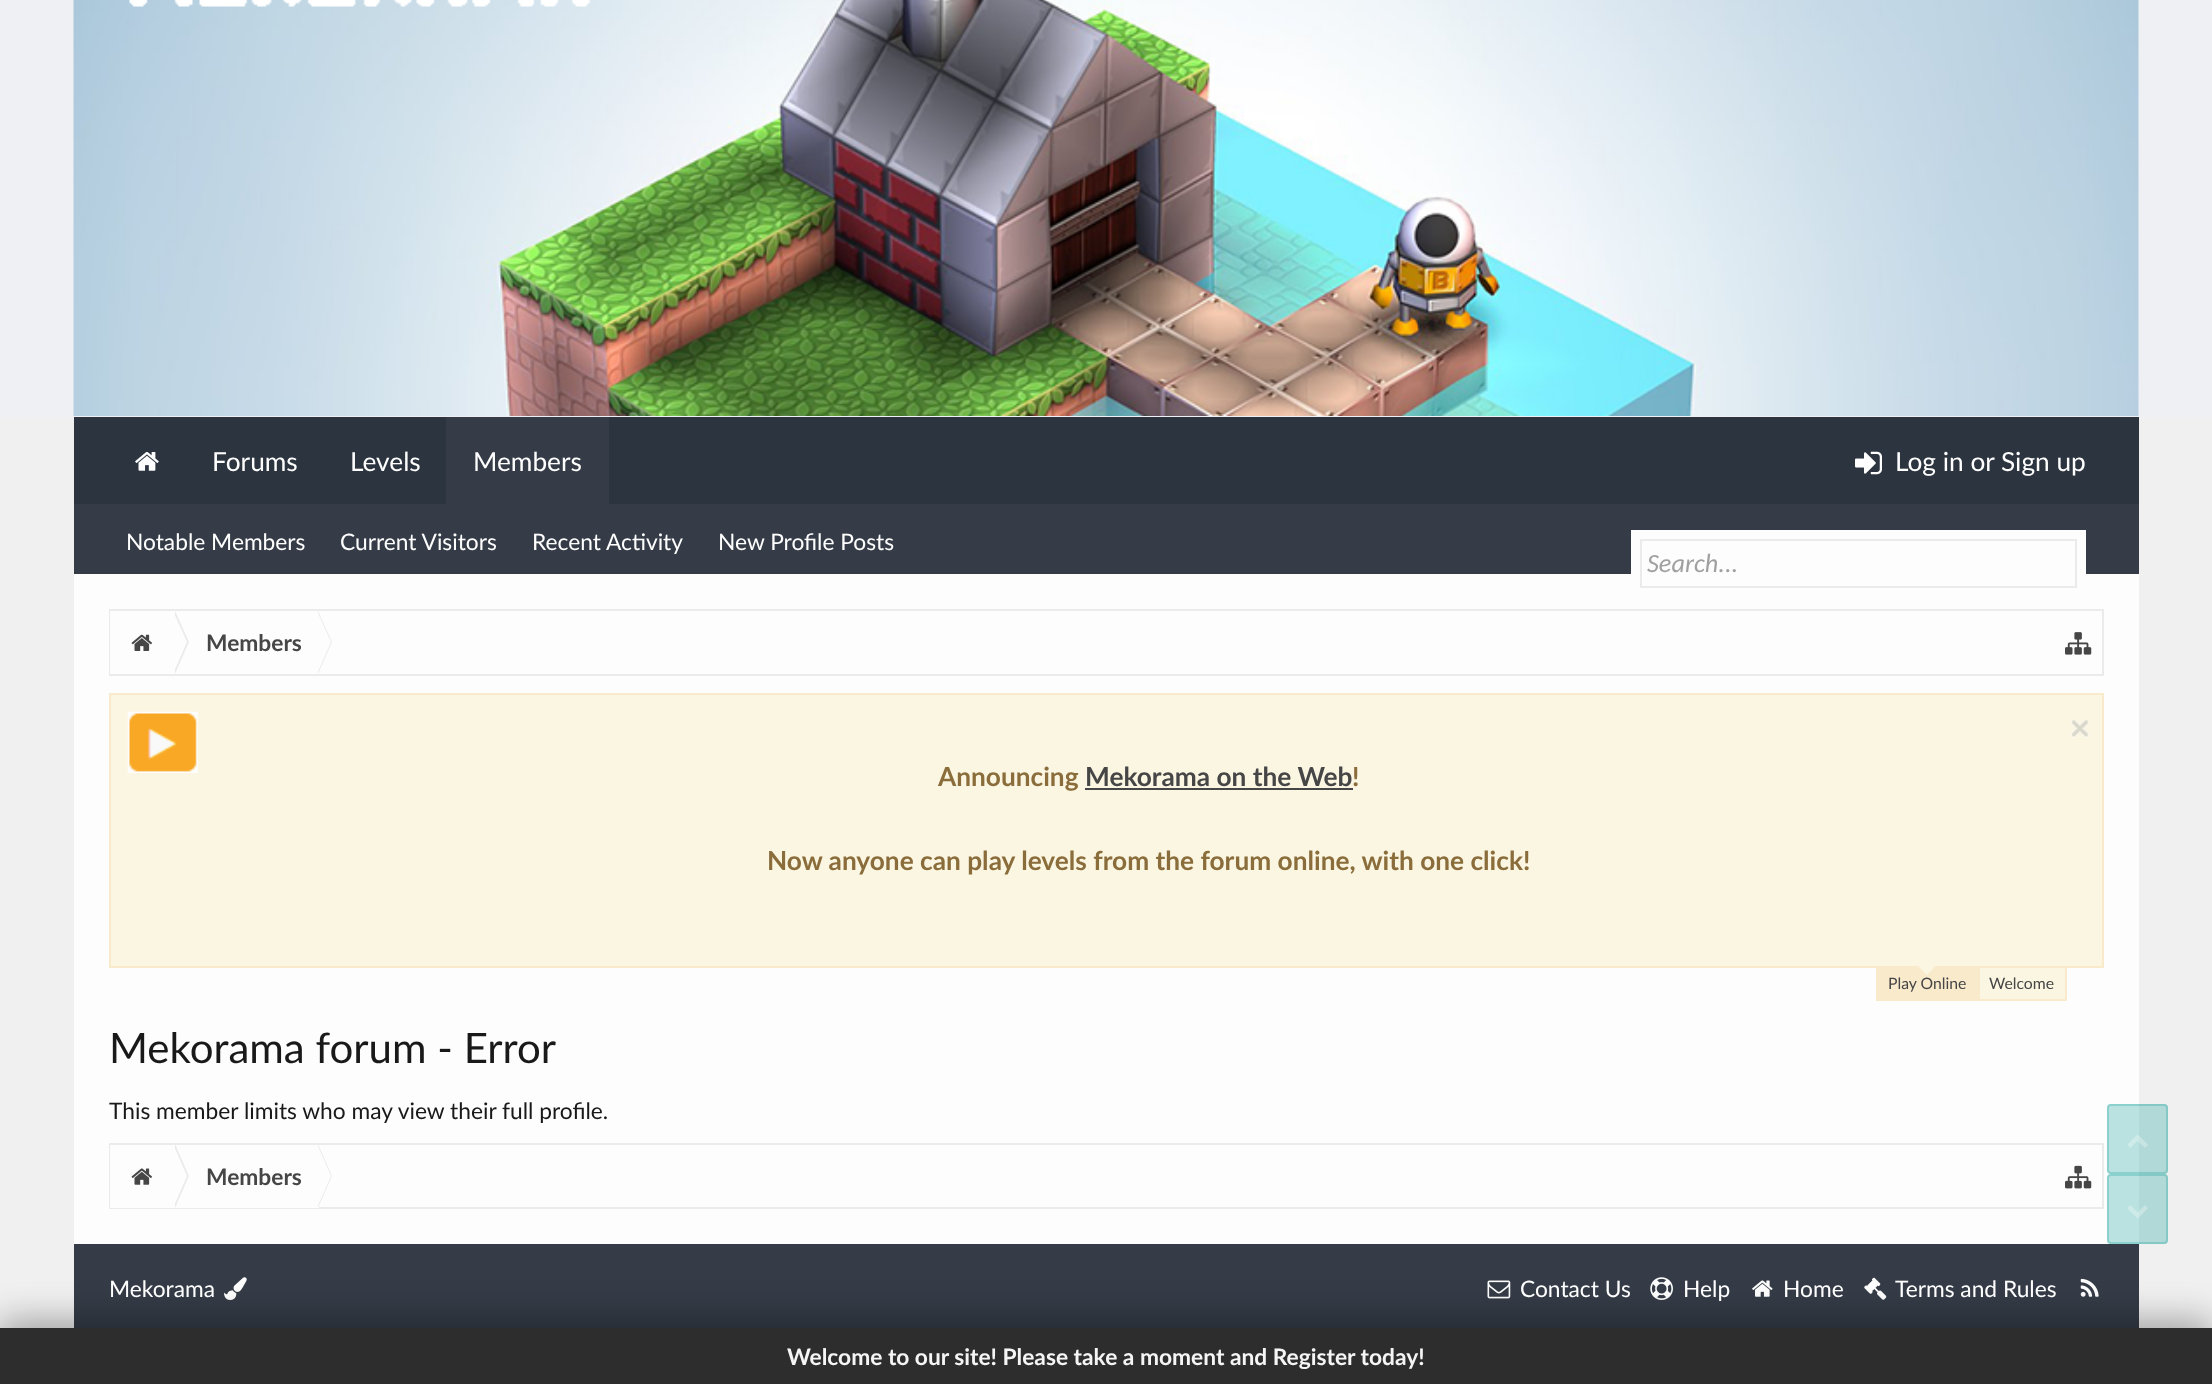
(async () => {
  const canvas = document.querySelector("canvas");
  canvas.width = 2212;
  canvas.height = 1384;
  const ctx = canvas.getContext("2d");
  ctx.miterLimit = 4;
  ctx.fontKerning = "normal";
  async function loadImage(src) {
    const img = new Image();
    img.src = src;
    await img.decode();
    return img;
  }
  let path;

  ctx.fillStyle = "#f0f0f0";
  ctx.fillRect(0, 0, 2212, 1384);
  ctx.fillStyle = "#eef0f4";
  ctx.fillRect(0, 0, 2212, 417);
  ctx.drawImage(await loadImage("img/1.png"), 73, 0, 2066, 416);
  for (const [x, y, w, h, color] of [
    [74, 417, 2065, 87, "#2c343f"],
    [446, 417, 163, 87, "#353c47"],
    [74, 504, 2065, 70, "#353c47"],
  ]) {
    ctx.fillStyle = color;
    ctx.fillRect(x, y, w, h);
  }
  ctx.drawImage(await loadImage("img/2.png"), 135, 452, 24, 19);
  ctx.drawImage(await loadImage("img/3.png"), 1855, 451, 27, 24);
  ctx.fillStyle = "#fdfdfd";
  ctx.fillRect(1631, 530, 455, 44);
  ctx.fillRect(74, 574, 2065, 670);
  ctx.strokeStyle = "#ebebeb";
  ctx.lineWidth = 2;
  ctx.strokeRect(1641, 540, 435, 47);
  ctx.strokeRect(110, 610, 1993, 65);
  ctx.fillRect(110, 611, 1, 63);
  ctx.drawImage(await loadImage("img/4.png"), 131, 634, 21, 17);
  ctx.fillStyle = "#ebebeb";
  path = new Path2D("M175 674V611L189 642Z");
  ctx.fill(path);
  ctx.fillStyle = "#fdfdfd";
  path = new Path2D("M173 674V611L187 642Z");
  ctx.fill(path);
  ctx.fillStyle = "#ebebeb";
  path = new Path2D("M318 674V611L332 642Z");
  ctx.fill(path);
  ctx.fillStyle = "#fdfdfd";
  path = new Path2D("M317 674V611L331 642Z");
  ctx.fill(path);
  ctx.drawImage(await loadImage("img/5.png"), 2065, 632, 27, 23);
  ctx.fillStyle = "#faf6e2";
  ctx.beginPath();
  ctx.rect(110, 694, 1993, 273);
  ctx.fill();
  ctx.strokeStyle = "#f9eacc";
  ctx.stroke();
  ctx.drawImage(await loadImage("img/6.png"), 127, 711, 71, 62);
  ctx.drawImage(await loadImage("img/7.png"), 2070, 719, 20, 19);
  ctx.fillStyle = "#464646";
  ctx.fillRect(1085, 788, 268, 2);
  ctx.fillStyle = "#f9eacc";
  ctx.fillRect(1876, 968, 102, 33);
  ctx.fillStyle = "#faf6e2";
  path = new Path2D("M1918 966H1935.5L1927 975Z");
  ctx.fill(path);
  ctx.beginPath();
  ctx.rect(1979, 967, 87, 33);
  ctx.fill();
  ctx.stroke();
  ctx.fillStyle = "rgba(31, 164, 158, 0.3)";
  ctx.beginPath();
  ctx.roundRect(2107, 1104, 61, 70, 4);
  ctx.fill();
  ctx.beginPath();
  ctx.roundRect(2108, 1105, 59, 68, 3);
  ctx.strokeStyle = "rgba(31, 164, 158, 0.3)";
  ctx.stroke();
  ctx.drawImage(await loadImage("img/8.png"), 2127, 1134, 21, 14);
  ctx.beginPath();
  ctx.roundRect(2107, 1174, 61, 70, 4);
  ctx.fill();
  ctx.beginPath();
  ctx.roundRect(2108, 1175, 59, 68, 3);
  ctx.stroke();
  ctx.drawImage(await loadImage("img/9.png"), 2127, 1205, 21, 14);
  ctx.strokeStyle = "#ebebeb";
  ctx.strokeRect(110, 1144, 1993, 64);
  ctx.fillStyle = "#fdfdfd";
  ctx.fillRect(110, 1145, 65, 63);
  ctx.drawImage(await loadImage("img/10.png"), 131, 1168, 21, 17);
  ctx.fillRect(175, 1207, 144, 1);
  ctx.fillStyle = "#ebebeb";
  path = new Path2D("M175 1208V1144L189 1176Z");
  ctx.fill(path);
  ctx.fillStyle = "#fdfdfd";
  path = new Path2D("M173 1208V1144L187 1176Z");
  ctx.fill(path);
  ctx.fillStyle = "#ebebeb";
  path = new Path2D("M318 1208V1144L332 1176Z");
  ctx.fill(path);
  ctx.fillStyle = "#fdfdfd";
  path = new Path2D("M317 1208V1144L331 1176Z");
  ctx.fill(path);
  ctx.drawImage(await loadImage("img/11.png"), 2065, 1165, 27, 24);
  ctx.fillStyle = "#353c47";
  ctx.fillRect(74, 1244, 2065, 84);
  ctx.drawImage(await loadImage("img/12.png"), 224, 1277, 23, 23);
  ctx.drawImage(await loadImage("img/13.png"), 1487, 1280, 24, 19);
  ctx.drawImage(await loadImage("img/14.png"), 1650, 1277, 23, 23);
  ctx.drawImage(await loadImage("img/15.png"), 1752, 1280, 21, 17);
  ctx.drawImage(await loadImage("img/16.png"), 1864, 1277, 23, 23);
  ctx.drawImage(await loadImage("img/17.png"), 2080, 1278, 19, 19);
  ctx.fillStyle = "rgba(0, 0, 0, 0.33)";
  ctx.filter = "blur(17.5px)";
  ctx.beginPath();
  ctx.rect(0, 1320, 2212, 56);
  ctx.fill();
  ctx.filter = "none";
  ctx.fillStyle = "#2d2d2d";
  ctx.fillRect(0, 1328, 2212, 56);
  ctx.font = "26.25px Lato";
  ctx.fillStyle = "#fefefe";
  ctx.fillText("Members", 473, 471);
  ctx.font = "22.75px Lato";
  for (const [text, x, y] of [
    ["Notable Members", 126, 550],
    ["Current Visitors", 340, 550],
    ["Recent Activity", 532, 550],
    ["New Profile Posts", 718, 550],
  ]) {
    ctx.fillText(text, x, y);
  }
  ctx.font = "26.25px Lato";
  for (const [text, x, y] of [
    ["Forums", 212, 471],
    ["Levels", 350, 471],
    ["Log in or Sign up", 1895, 471],
  ]) {
    ctx.fillText(text, x, y);
  }
  ctx.font = "italic 26.25px Carlito";
  ctx.fillStyle = "#a0a0a0";
  ctx.fillText("Search...", 1647, 572);
  ctx.font = "bold 22.75px Lato";
  ctx.fillStyle = "#464646";
  ctx.fillText("Members", 206, 651);
  ctx.font = "bold 26.25px Lato";
  ctx.fillStyle = "#8a6d3b";
  ctx.fillText("Announcing", 938, 786);
  ctx.fillStyle = "#464646";
  ctx.fillText("Mekorama on the Web", 1085, 786);
  ctx.fillStyle = "#8a6d3b";
  ctx.fillText("!", 1352, 786);
  ctx.fillText("Now anyone can play levels from the forum online, with one click!", 767, 870);
  ctx.font = "15.75px Lato";
  ctx.fillStyle = "#464646";
  ctx.fillText("Play Online", 1888, 989);
  ctx.fillText("Welcome", 1989, 989);
  ctx.font = "42px Lato";
  ctx.fillStyle = "#191919";
  ctx.fillText("Mekorama forum - Error", 109, 1063);
  ctx.font = "22.75px Lato";
  ctx.fillText("This member limits who may view their full profile.", 109, 1119);
  ctx.font = "bold 22.75px Lato";
  ctx.fillStyle = "#464646";
  ctx.fillText("Members", 206, 1185);
  ctx.fillStyle = "#f5f5f5";
  ctx.fillText("Welcome to our site! Please take a moment and Register today!", 787, 1365);
  ctx.font = "22.75px Lato";
  ctx.fillStyle = "#fefefe";
  for (const [text, x, y] of [
    ["Mekorama", 109, 1297],
    ["Contact Us", 1520, 1297],
    ["Help", 1683, 1297],
    ["Home", 1783, 1297],
    ["Terms and Rules", 1895, 1297],
  ]) {
    ctx.fillText(text, x, y);
  }
})();
